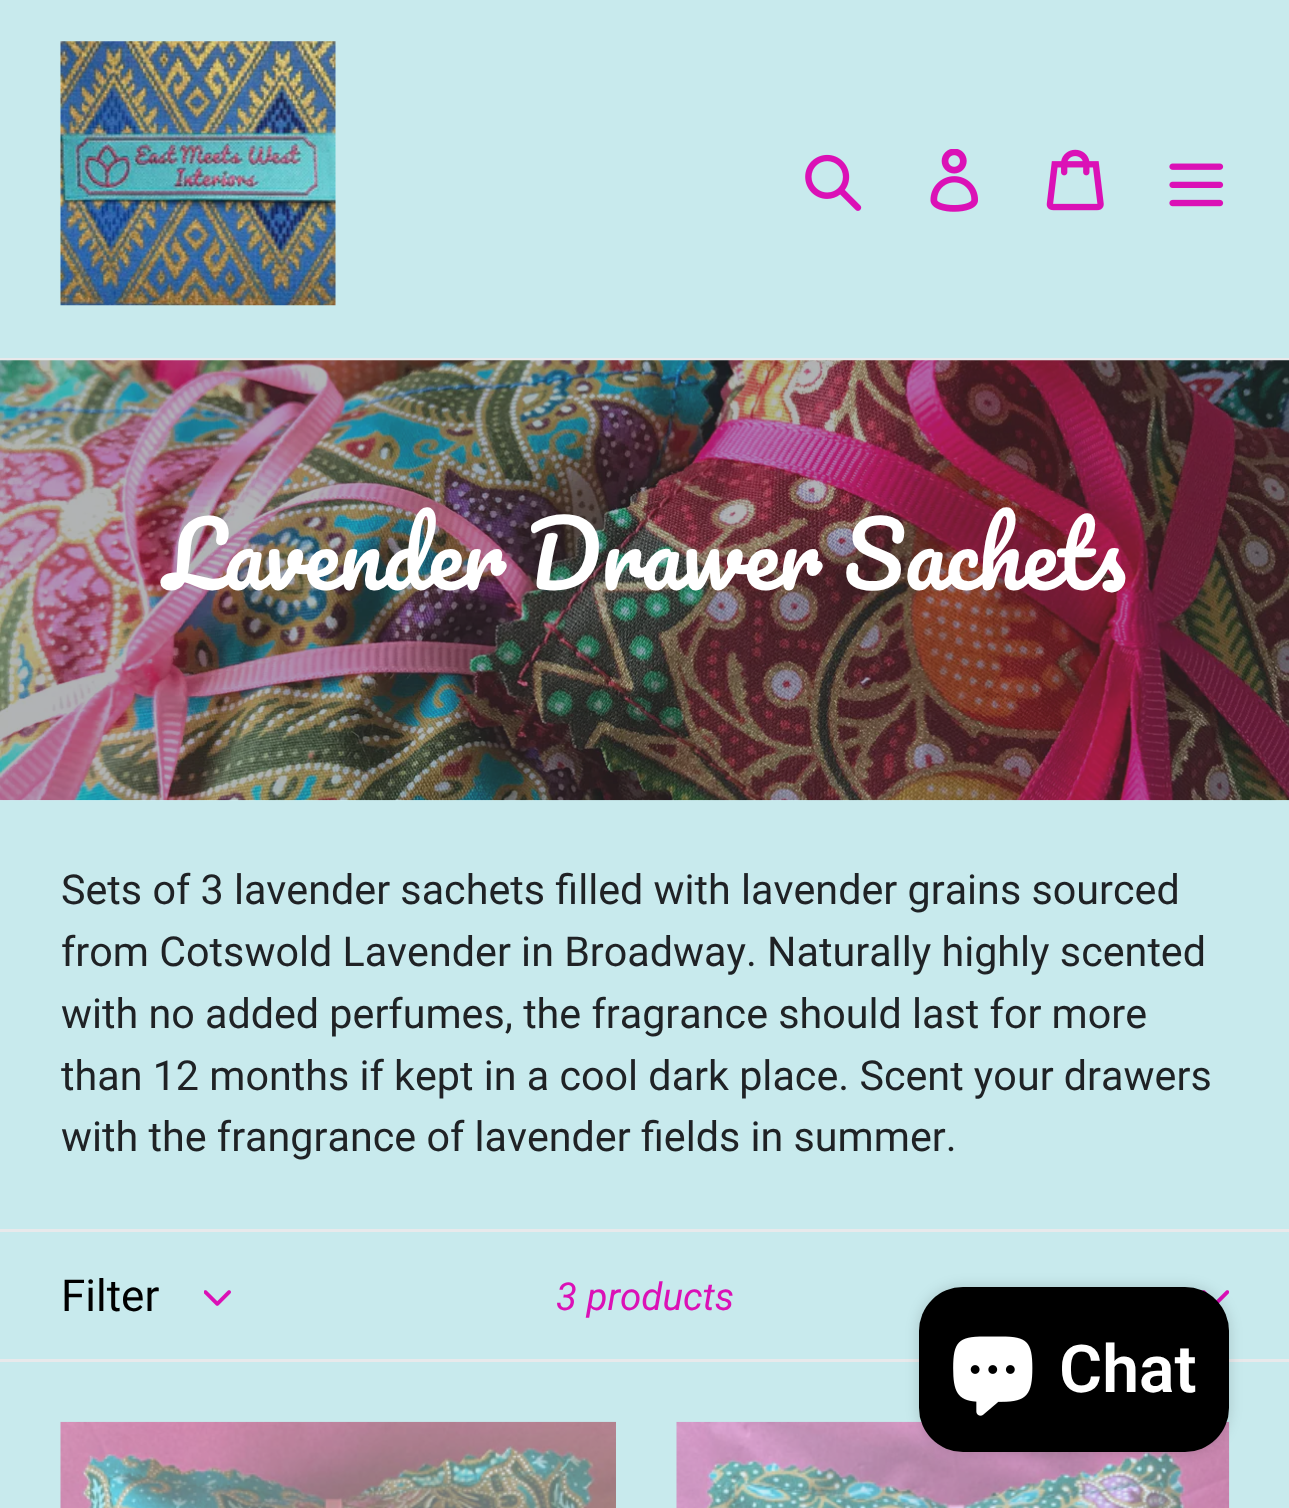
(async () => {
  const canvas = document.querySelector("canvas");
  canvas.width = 1289;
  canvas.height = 1508;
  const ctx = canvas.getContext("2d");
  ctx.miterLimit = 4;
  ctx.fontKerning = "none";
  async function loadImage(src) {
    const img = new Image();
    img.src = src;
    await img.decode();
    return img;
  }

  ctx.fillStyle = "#c8eaed";
  ctx.fillRect(0, 0, 1289, 1508);
  ctx.fillStyle = "#e8e9eb";
  ctx.fillRect(0, 358, 1289, 3);
  ctx.drawImage(await loadImage("img/1.png"), 60, 41, 276, 265);
  ctx.drawImage(await loadImage("img/2.png"), 805, 154, 57, 57);
  ctx.drawImage(await loadImage("img/3.png"), 930, 149, 48, 63);
  ctx.drawImage(await loadImage("img/4.png"), 1046, 149, 58, 62);
  ctx.drawImage(await loadImage("img/5.png"), 1169, 163, 55, 44);
  ctx.drawImage(await loadImage("img/6.png"), 0, 360, 1289, 441);
  ctx.fillRect(0, 1229, 1289, 3);
  ctx.fillRect(0, 1359, 1289, 3);
  ctx.drawImage(await loadImage("img/7.png"), 204, 1290, 27, 16);
  ctx.drawImage(await loadImage("img/8.png"), 1202, 1290, 27, 13);
  ctx.drawImage(await loadImage("img/9.png"), 60, 1421, 556, 87);
  ctx.drawImage(await loadImage("img/10.png"), 676, 1421, 554, 87);
  ctx.fillStyle = "rgba(0, 0, 0, 0.15)";
  ctx.filter = "blur(7px)";
  ctx.beginPath();
  ctx.roundRect(919, 1287, 310, 165, 44);
  ctx.fill();
  ctx.filter = "none";
  ctx.fillStyle = "#000000";
  ctx.beginPath();
  ctx.roundRect(919, 1287, 310, 165, 44);
  ctx.fill();
  ctx.drawImage(await loadImage("img/11.png"), 953, 1336, 80, 80);
  ctx.wordSpacing = "-2px";
  ctx.font = "88px Pacifico";
  ctx.fillStyle = "#ffffff";
  ctx.fillText("Lavender Drawer Sachets", 164, 590);
  ctx.wordSpacing = "0px";
  ctx.font = "41.25px Roboto";
  ctx.fillStyle = "#1f2225";
  for (const [text, x, y] of [
    ["Sets of 3 lavender sachets filled with lavender grains sourced", 61, 904],
    ["from Cotswold Lavender in Broadway. Naturally highly scented", 61, 966],
    ["with no added perfumes, the fragrance should last for more", 61, 1028],
    ["than 12 months if kept in a cool dark place. Scent your drawers", 61, 1090],
    ["with the frangrance of lavender fields in summer.", 61, 1151],
  ]) {
    ctx.fillText(text, x, y);
  }
  ctx.font = "44px Roboto";
  ctx.fillStyle = "#000000";
  ctx.fillText("Filter", 61, 1311);
  ctx.font = "italic 38.5px Roboto";
  ctx.fillStyle = "#db11b6";
  ctx.fillText("3 products", 556, 1310);
  ctx.font = "600 66px Roboto";
  ctx.fillStyle = "#ffffff";
  ctx.fillText("Chat", 1059, 1392);
})();
